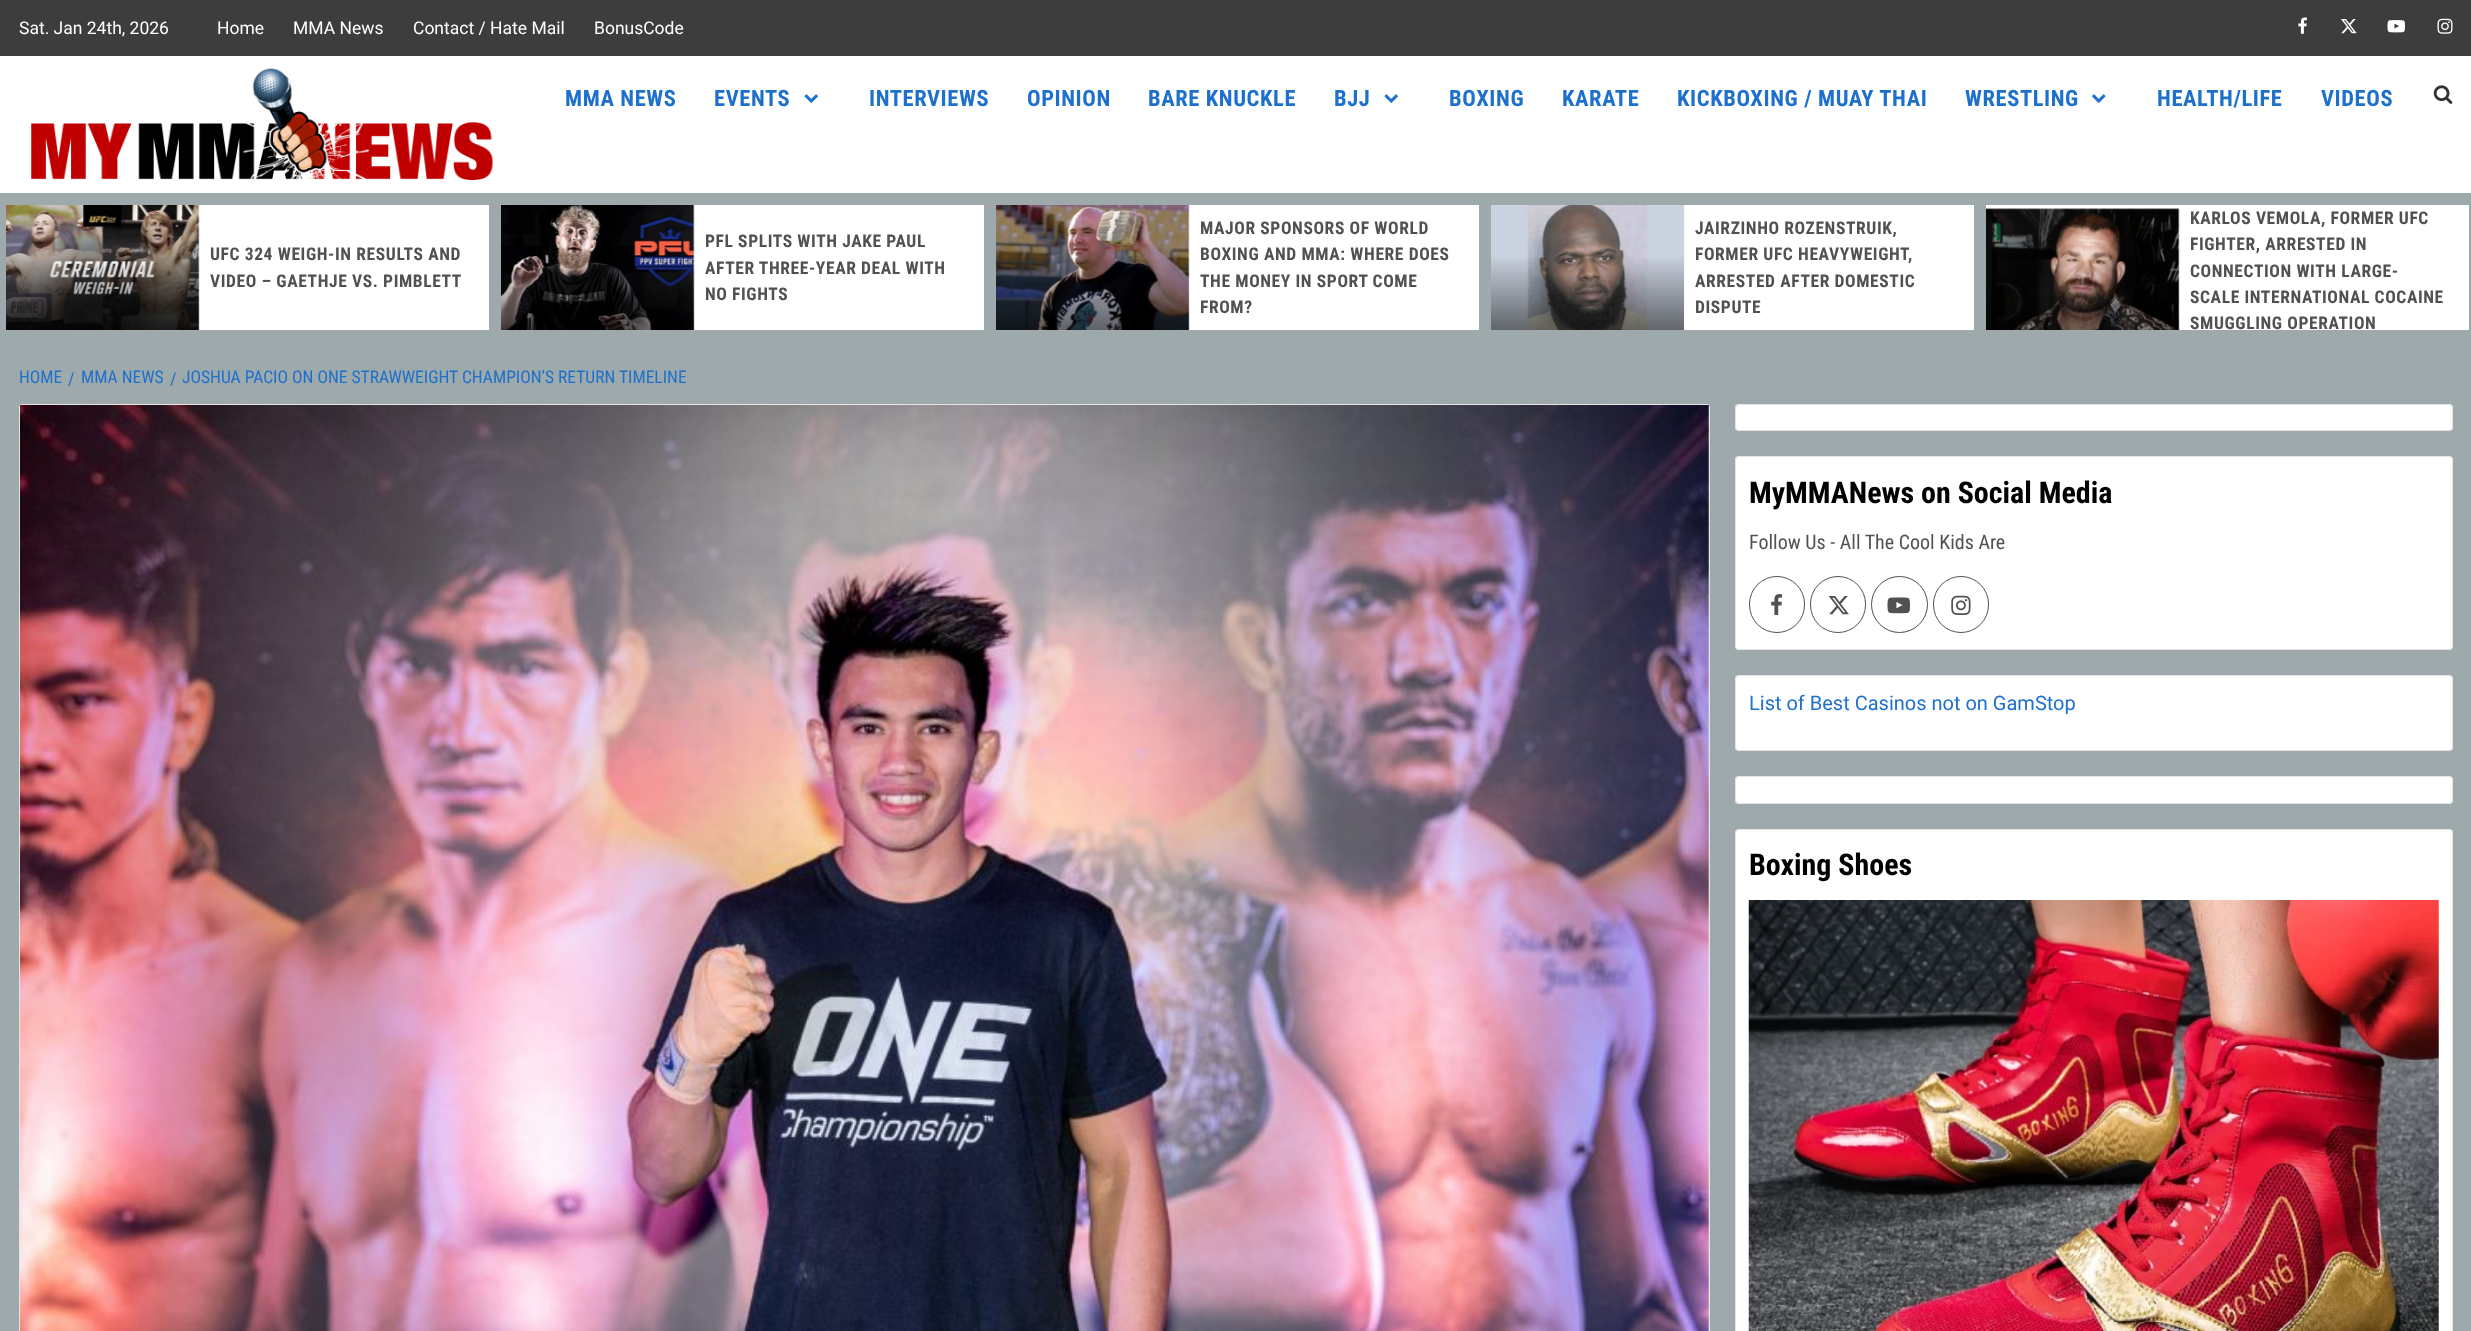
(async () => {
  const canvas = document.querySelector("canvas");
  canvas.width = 2471;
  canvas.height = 1331;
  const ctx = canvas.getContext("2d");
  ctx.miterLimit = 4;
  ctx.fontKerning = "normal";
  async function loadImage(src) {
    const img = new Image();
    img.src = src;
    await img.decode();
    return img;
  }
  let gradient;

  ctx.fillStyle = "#9da9aa";
  ctx.fillRect(0, 0, 2471, 1331);
  ctx.fillStyle = "#3d3d3d";
  ctx.fillRect(0, 0, 2471, 56);
  ctx.drawImage(await loadImage("img/1.png"), 2298, 17, 9, 17);
  ctx.drawImage(await loadImage("img/2.png"), 2341, 19, 16, 15);
  ctx.drawImage(await loadImage("img/3.png"), 2387, 20, 18, 13);
  ctx.drawImage(await loadImage("img/4.png"), 2437, 18, 16, 16);
  ctx.fillStyle = "#ffffff";
  ctx.fillRect(0, 56, 2471, 137);
  ctx.drawImage(await loadImage("img/5.png"), 31, 68, 462, 112);
  ctx.drawImage(await loadImage("img/6.png"), 804, 94, 14, 9);
  ctx.drawImage(await loadImage("img/6.png"), 1384, 94, 14, 9);
  ctx.drawImage(await loadImage("img/7.png"), 2092, 94, 14, 9);
  ctx.drawImage(await loadImage("img/8.png"), 2433, 85, 20, 19);
  ctx.fillRect(199, 205, 290, 125);
  ctx.fillStyle = "#d7d7d7";
  ctx.fillRect(198, 205, 1, 125);
  ctx.drawImage(await loadImage("img/9.png"), 6, 205, 194, 125);
  gradient = ctx.createLinearGradient(103, 205, 103, 330);
  gradient.addColorStop(0.4, "rgba(0, 0, 0, 0)");
  gradient.addColorStop(1, "rgba(0, 0, 0, 0.52)");
  ctx.fillStyle = gradient;
  ctx.fillRect(6, 258, 193, 72);
  ctx.fillStyle = "#ffffff";
  ctx.fillRect(694, 205, 290, 125);
  ctx.fillStyle = "#d7d7d7";
  ctx.fillRect(693, 205, 1, 125);
  ctx.drawImage(await loadImage("img/10.png"), 501, 205, 194, 125);
  gradient = ctx.createLinearGradient(598, 205, 598, 330);
  gradient.addColorStop(0.4, "rgba(0, 0, 0, 0)");
  gradient.addColorStop(1, "rgba(0, 0, 0, 0.52)");
  ctx.fillStyle = gradient;
  ctx.fillRect(501, 258, 193, 72);
  ctx.fillStyle = "#ffffff";
  ctx.fillRect(1189, 205, 290, 125);
  ctx.fillStyle = "#d7d7d7";
  ctx.fillRect(1188, 205, 1, 125);
  ctx.drawImage(await loadImage("img/11.png"), 996, 205, 194, 125);
  gradient = ctx.createLinearGradient(1093, 205, 1093, 330);
  gradient.addColorStop(0.4, "rgba(0, 0, 0, 0)");
  gradient.addColorStop(1, "rgba(0, 0, 0, 0.52)");
  ctx.fillStyle = gradient;
  ctx.fillRect(996, 258, 193, 72);
  ctx.fillStyle = "#ffffff";
  ctx.fillRect(1684, 205, 290, 125);
  ctx.fillStyle = "#d7d7d7";
  ctx.fillRect(1683, 205, 1, 125);
  ctx.drawImage(await loadImage("img/12.png"), 1491, 205, 194, 125);
  gradient = ctx.createLinearGradient(1588, 205, 1588, 330);
  gradient.addColorStop(0.4, "rgba(0, 0, 0, 0)");
  gradient.addColorStop(1, "rgba(0, 0, 0, 0.52)");
  ctx.fillStyle = gradient;
  ctx.fillRect(1491, 258, 193, 72);
  ctx.fillStyle = "#ffffff";
  ctx.fillRect(1986, 205, 483, 125);
  ctx.fillStyle = "#d7d7d7";
  ctx.fillRect(1986, 209, 193, 121);
  ctx.drawImage(await loadImage("img/13.png"), 1986, 208, 194, 122);
  gradient = ctx.createLinearGradient(2083, 209, 2083, 334);
  gradient.addColorStop(0.4, "rgba(0, 0, 0, 0)");
  gradient.addColorStop(1, "rgba(0, 0, 0, 0.52)");
  ctx.fillStyle = gradient;
  ctx.fillRect(1986, 262, 193, 68);
  ctx.fillStyle = "#ffffff";
  ctx.beginPath();
  ctx.roundRect(19, 404, 1691, 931, 4);
  ctx.fill();
  ctx.beginPath();
  ctx.roundRect(19.5, 404.5, 1690, 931, 3.5);
  ctx.strokeStyle = "rgba(0, 1, 1, 0.1)";
  ctx.stroke();
  ctx.drawImage(await loadImage("img/14.png"), 20, 405, 1689, 926);
  ctx.beginPath();
  ctx.roundRect(1735, 404, 718, 27, 4);
  ctx.fill();
  ctx.beginPath();
  ctx.roundRect(1735.5, 404.5, 717, 26, 3.5);
  ctx.stroke();
  ctx.beginPath();
  ctx.roundRect(1735, 456, 718, 194, 4);
  ctx.fill();
  ctx.beginPath();
  ctx.roundRect(1735.5, 456.5, 717, 193, 3.5);
  ctx.stroke();
  ctx.beginPath();
  ctx.roundRect(1749.5, 576.5, 55, 56, 27.5);
  ctx.strokeStyle = "#515151";
  ctx.stroke();
  ctx.drawImage(await loadImage("img/15.png"), 1771, 594, 12, 21);
  ctx.beginPath();
  ctx.roundRect(1810.5, 576.5, 55, 56, 27.5);
  ctx.stroke();
  ctx.drawImage(await loadImage("img/16.png"), 1828, 596, 21, 19);
  ctx.beginPath();
  ctx.arc(1899.5, 604.5, 28, 0, Math.PI * 2);
  ctx.stroke();
  ctx.drawImage(await loadImage("img/17.png"), 1887, 597, 23, 17);
  ctx.beginPath();
  ctx.roundRect(1933.5, 576.5, 55, 56, 27.5);
  ctx.stroke();
  ctx.drawImage(await loadImage("img/18.png"), 1951, 595, 20, 20);
  ctx.beginPath();
  ctx.roundRect(1735, 675, 718, 76, 4);
  ctx.fill();
  ctx.beginPath();
  ctx.roundRect(1735.5, 675.5, 717, 75, 3.5);
  ctx.strokeStyle = "rgba(0, 1, 1, 0.1)";
  ctx.stroke();
  ctx.beginPath();
  ctx.roundRect(1735, 776, 718, 28, 4);
  ctx.fill();
  ctx.beginPath();
  ctx.roundRect(1735.5, 776.5, 717, 27, 3.5);
  ctx.stroke();
  ctx.beginPath();
  ctx.roundRect(1735, 829, 718, 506, 4);
  ctx.fill();
  ctx.beginPath();
  ctx.roundRect(1735.5, 829.5, 717, 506, 3.5);
  ctx.stroke();
  ctx.drawImage(await loadImage("img/19.png"), 1748, 900, 691, 431);
  ctx.font = "17.5px Roboto";
  for (const [text, x, y] of [
    ["Sat. Jan 24th, 2026", 19, 34],
    ["Home", 217, 34],
    ["MMA News", 293, 34],
    ["Contact / Hate Mail", 413, 34],
    ["BonusCode", 594, 34],
  ]) {
    ctx.fillText(text, x, y);
  }
  ctx.letterSpacing = "0.6px";
  ctx.font = "bold 22.5px Roboto Condensed";
  ctx.fillStyle = "#1e70cd";
  for (const [text, x, y] of [
    ["MMA NEWS", 565, 106],
    ["EVENTS", 714, 106],
    ["INTERVIEWS", 869, 106],
    ["OPINION", 1027, 106],
    ["BARE KNUCKLE", 1148, 106],
    ["BJJ", 1334, 106],
    ["BOXING", 1449, 106],
    ["KARATE", 1562, 106],
    ["KICKBOXING / MUAY THAI", 1677, 106],
    ["WRESTLING", 1965, 106],
    ["HEALTH/LIFE", 2157, 106],
    ["VIDEOS", 2321, 106],
  ]) {
    ctx.fillText(text, x, y);
  }
  ctx.font = "bold 17.5px Roboto Condensed";
  ctx.fillStyle = "#515151";
  for (const [text, x, y] of [
    ["UFC 324 WEIGH-IN RESULTS AND", 210, 260],
    ["VIDEO – GAETHJE VS. PIMBLETT", 210, 287],
    ["PFL SPLITS WITH JAKE PAUL", 705, 247],
    ["AFTER THREE-YEAR DEAL WITH", 705, 274],
    ["NO FIGHTS", 705, 300],
    ["MAJOR SPONSORS OF WORLD", 1200, 234],
    ["BOXING AND MMA: WHERE DOES", 1200, 260],
    ["THE MONEY IN SPORT COME", 1200, 287],
    ["FROM?", 1200, 313],
    ["JAIRZINHO ROZENSTRUIK,", 1695, 234],
    ["FORMER UFC HEAVYWEIGHT,", 1695, 260],
    ["ARRESTED AFTER DOMESTIC", 1695, 287],
    ["DISPUTE", 1695, 313],
    ["KARLOS VEMOLA, FORMER UFC", 2190, 224],
    ["FIGHTER, ARRESTED IN", 2190, 250],
    ["CONNECTION WITH LARGE-", 2190, 277],
    ["SCALE INTERNATIONAL COCAINE", 2190, 303],
    ["SMUGGLING OPERATION", 2190, 329],
  ]) {
    ctx.fillText(text, x, y);
  }
  ctx.letterSpacing = "0px";
  ctx.font = "17.5px Roboto Condensed";
  ctx.fillStyle = "#1e70cd";
  for (const [text, x, y] of [
    ["HOME", 19, 383],
    ["/", 68, 385],
    ["MMA NEWS", 81, 383],
    ["/", 170, 385],
    ["JOSHUA PACIO ON ONE STRAWWEIGHT CHAMPION’S RETURN TIMELINE", 182, 383],
  ]) {
    ctx.fillText(text, x, y);
  }
  ctx.font = "bold 30px Roboto Condensed";
  ctx.fillStyle = "#000000";
  ctx.fillText("MyMMANews on Social Media", 1749, 503);
  ctx.font = "20px Roboto Condensed";
  ctx.fillStyle = "#515151";
  ctx.fillText("Follow Us - All The Cool Kids Are", 1749, 549);
  ctx.font = "20px Roboto";
  ctx.fillStyle = "#1e70cd";
  ctx.fillText("List of Best Casinos not on GamStop", 1749, 710);
  ctx.font = "bold 30px Roboto Condensed";
  ctx.fillStyle = "#000000";
  ctx.fillText("Boxing Shoes", 1749, 875);
})();
